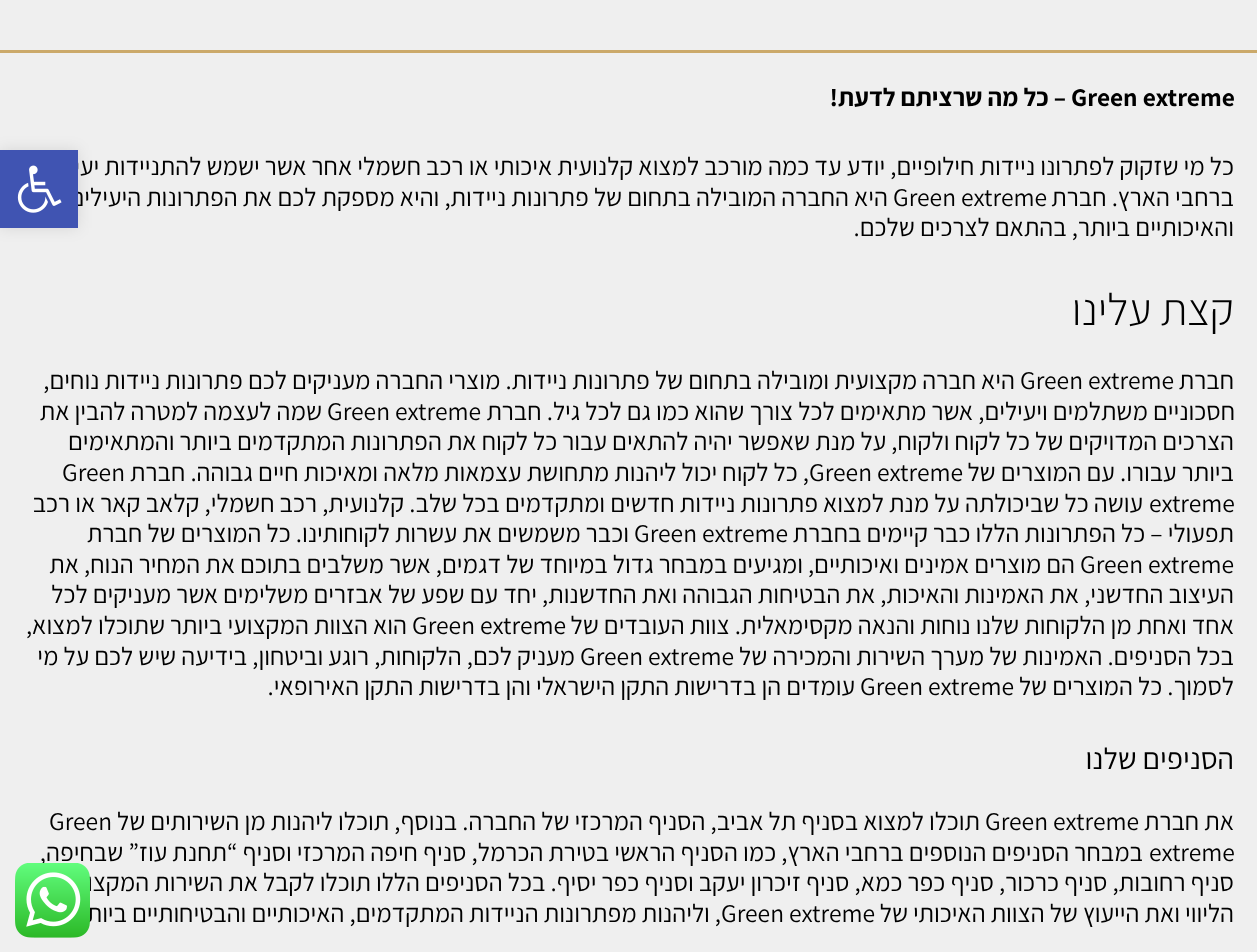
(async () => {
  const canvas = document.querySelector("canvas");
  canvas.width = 1257;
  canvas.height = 952;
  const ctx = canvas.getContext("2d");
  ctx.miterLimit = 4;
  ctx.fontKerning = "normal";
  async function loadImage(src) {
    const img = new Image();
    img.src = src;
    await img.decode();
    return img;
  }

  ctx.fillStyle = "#efefef";
  ctx.fillRect(0, 0, 1257, 952);
  ctx.fillStyle = "#cba96a";
  ctx.fillRect(0, 50, 1257, 3);
  ctx.fillStyle = "rgba(0, 0, 0, 0.1)";
  ctx.filter = "blur(7.5px)";
  ctx.beginPath();
  ctx.rect(0, 150, 78, 78);
  ctx.fill();
  ctx.filter = "none";
  ctx.font = "bold 25.5px Assistant";
  ctx.fillStyle = "#000000";
  ctx.fillText("Green extreme", 1071, 106);
  ctx.direction = "rtl";
  ctx.fillText("– כל מה שרציתם לדעת!", 1066, 106);
  ctx.font = "25.5px Assistant";
  ctx.fillText("כל מי שזקוק לפתרונו ניידות חילופיים, יודע עד כמה מורכב למצוא קלנועית איכותי או רכב חשמלי אחר אשר ישמש להתניידות יעילה", 1234, 175);
  ctx.fillText("ברחבי הארץ. חברת", 1234, 206);
  ctx.direction = "ltr";
  ctx.fillText("Green extreme", 893, 206);
  ctx.direction = "rtl";
  ctx.fillText("היא החברה המובילה בתחום של פתרונות ניידות, והיא מספקת לכם את הפתרונות היעילים", 888, 206);
  ctx.fillText("והאיכותיים ביותר, בהתאם לצרכים שלכם.", 1234, 236);
  ctx.font = "300 45px Assistant";
  ctx.fillText("קצת עלינו", 1234, 325);
  ctx.font = "25.5px Assistant";
  ctx.fillText("חברת", 1234, 389);
  ctx.direction = "ltr";
  ctx.fillText("Green extreme", 1020, 389);
  ctx.direction = "rtl";
  ctx.fillText("היא חברה מקצועית ומובילה בתחום של פתרונות ניידות. מוצרי החברה מעניקים לכם פתרונות ניידות נוחים,", 1015, 389);
  ctx.fillText("חסכוניים משתלמים ויעילים, אשר מתאימים לכל צורך שהוא כמו גם לכל גיל. חברת", 1235, 420);
  ctx.direction = "ltr";
  ctx.fillText("Green extreme", 327, 420);
  ctx.direction = "rtl";
  for (const [text, x, y] of [
    ["שמה לעצמה למטרה להבין את", 322, 420],
    ["הצרכים המדויקים של כל לקוח ולקוח, על מנת שאפשר יהיה להתאים עבור כל לקוח את הפתרונות המתקדמים ביותר והמתאימים", 1234, 450],
    ["ביותר עבורו. עם המוצרים של", 1234, 481],
  ]) {
    ctx.fillText(text, x, y);
  }
  ctx.direction = "ltr";
  ctx.fillText("Green extreme", 809, 481);
  ctx.direction = "rtl";
  ctx.fillText(", כל לקוח יכול ליהנות מתחושת עצמאות מלאה ומאיכות חיים גבוהה. חברת", 809, 481);
  ctx.direction = "ltr";
  ctx.fillText("Green", 62, 481);
  ctx.fillText("extreme", 1149, 512);
  ctx.direction = "rtl";
  ctx.fillText("עושה כל שביכולתה על מנת למצוא פתרונות ניידות חדשים ומתקדמים בכל שלב. קלנועית, רכב חשמלי, קלאב קאר או רכב", 1143, 512);
  ctx.fillText("תפעולי – כל הפתרונות הללו כבר קיימים בחברת", 1234, 542);
  ctx.direction = "ltr";
  ctx.fillText("Green extreme", 634, 542);
  ctx.direction = "rtl";
  ctx.fillText("וכבר משמשים את עשרות לקוחותינו. כל המוצרים של חברת", 629, 542);
  ctx.direction = "ltr";
  ctx.fillText("Green extreme", 1080, 573);
  ctx.direction = "rtl";
  for (const [text, x, y] of [
    ["הם מוצרים אמינים ואיכותיים, ומגיעים במבחר גדול במיוחד של דגמים, אשר משלבים בתוכם את המחיר הנוח, את", 1075, 573],
    ["העיצוב החדשני, את האמינות והאיכות, את הבטיחות הגבוהה ואת החדשנות, יחד עם שפע של אבזרים משלימים אשר מעניקים לכל", 1234, 603],
    ["אחד ואחת מן הלקוחות שלנו נוחות והנאה מקסימאלית. צוות העובדים של", 1234, 634],
  ]) {
    ctx.fillText(text, x, y);
  }
  ctx.direction = "ltr";
  ctx.fillText("Green extreme", 412, 634);
  ctx.direction = "rtl";
  ctx.fillText("הוא הצוות המקצועי ביותר שתוכלו למצוא,", 407, 634);
  ctx.fillText("בכל הסניפים. האמינות של מערך השירות והמכירה של", 1234, 665);
  ctx.direction = "ltr";
  ctx.fillText("Green extreme", 580, 665);
  ctx.direction = "rtl";
  ctx.fillText("מעניק לכם, הלקוחות, רוגע וביטחון, בידיעה שיש לכם על מי", 575, 665);
  ctx.fillText("לסמוך. כל המוצרים של", 1234, 695);
  ctx.direction = "ltr";
  ctx.fillText("Green extreme", 860, 695);
  ctx.direction = "rtl";
  ctx.fillText("עומדים הן בדרישות התקן הישראלי והן בדרישות התקן האירופאי.", 855, 695);
  ctx.font = "30px Assistant";
  ctx.fillText("הסניפים שלנו", 1234, 769);
  ctx.font = "25.5px Assistant";
  ctx.fillText("את חברת", 1234, 830);
  ctx.direction = "ltr";
  ctx.fillText("Green extreme", 985, 830);
  ctx.direction = "rtl";
  ctx.fillText("תוכלו למצוא בסניף תל אביב, הסניף המרכזי של החברה. בנוסף, תוכלו ליהנות מן השירותים של", 980, 830);
  ctx.direction = "ltr";
  ctx.fillText("Green", 49, 830);
  ctx.fillText("extreme", 1149, 861);
  ctx.direction = "rtl";
  for (const [text, x, y] of [
    ["במבחר הסניפים הנוספים ברחבי הארץ, כמו הסניף הראשי בטירת הכרמל, סניף חיפה המרכזי וסניף “תחנת עוז” שבחיפה,", 1143, 861],
    ["סניף רחובות, סניף כרכור, סניף כפר כמא, סניף זיכרון יעקב וסניף כפר יסיף. בכל הסניפים הללו תוכלו לקבל את השירות המקצועי, את", 1234, 891],
    ["הליווי ואת הייעוץ של הצוות האיכותי של", 1234, 922],
  ]) {
    ctx.fillText(text, x, y);
  }
  ctx.direction = "ltr";
  ctx.fillText("Green extreme", 721, 922);
  ctx.direction = "rtl";
  ctx.fillText(", וליהנות מפתרונות הניידות המתקדמים, האיכותיים והבטיחותיים ביותר.", 721, 922);
  ctx.fillStyle = "#4054b2";
  ctx.fillRect(0, 150, 78, 78);
  ctx.drawImage(await loadImage("img/1.png"), 17, 165, 45, 48);
  ctx.drawImage(await loadImage("img/2.png"), 15, 863, 75, 75);
})();
